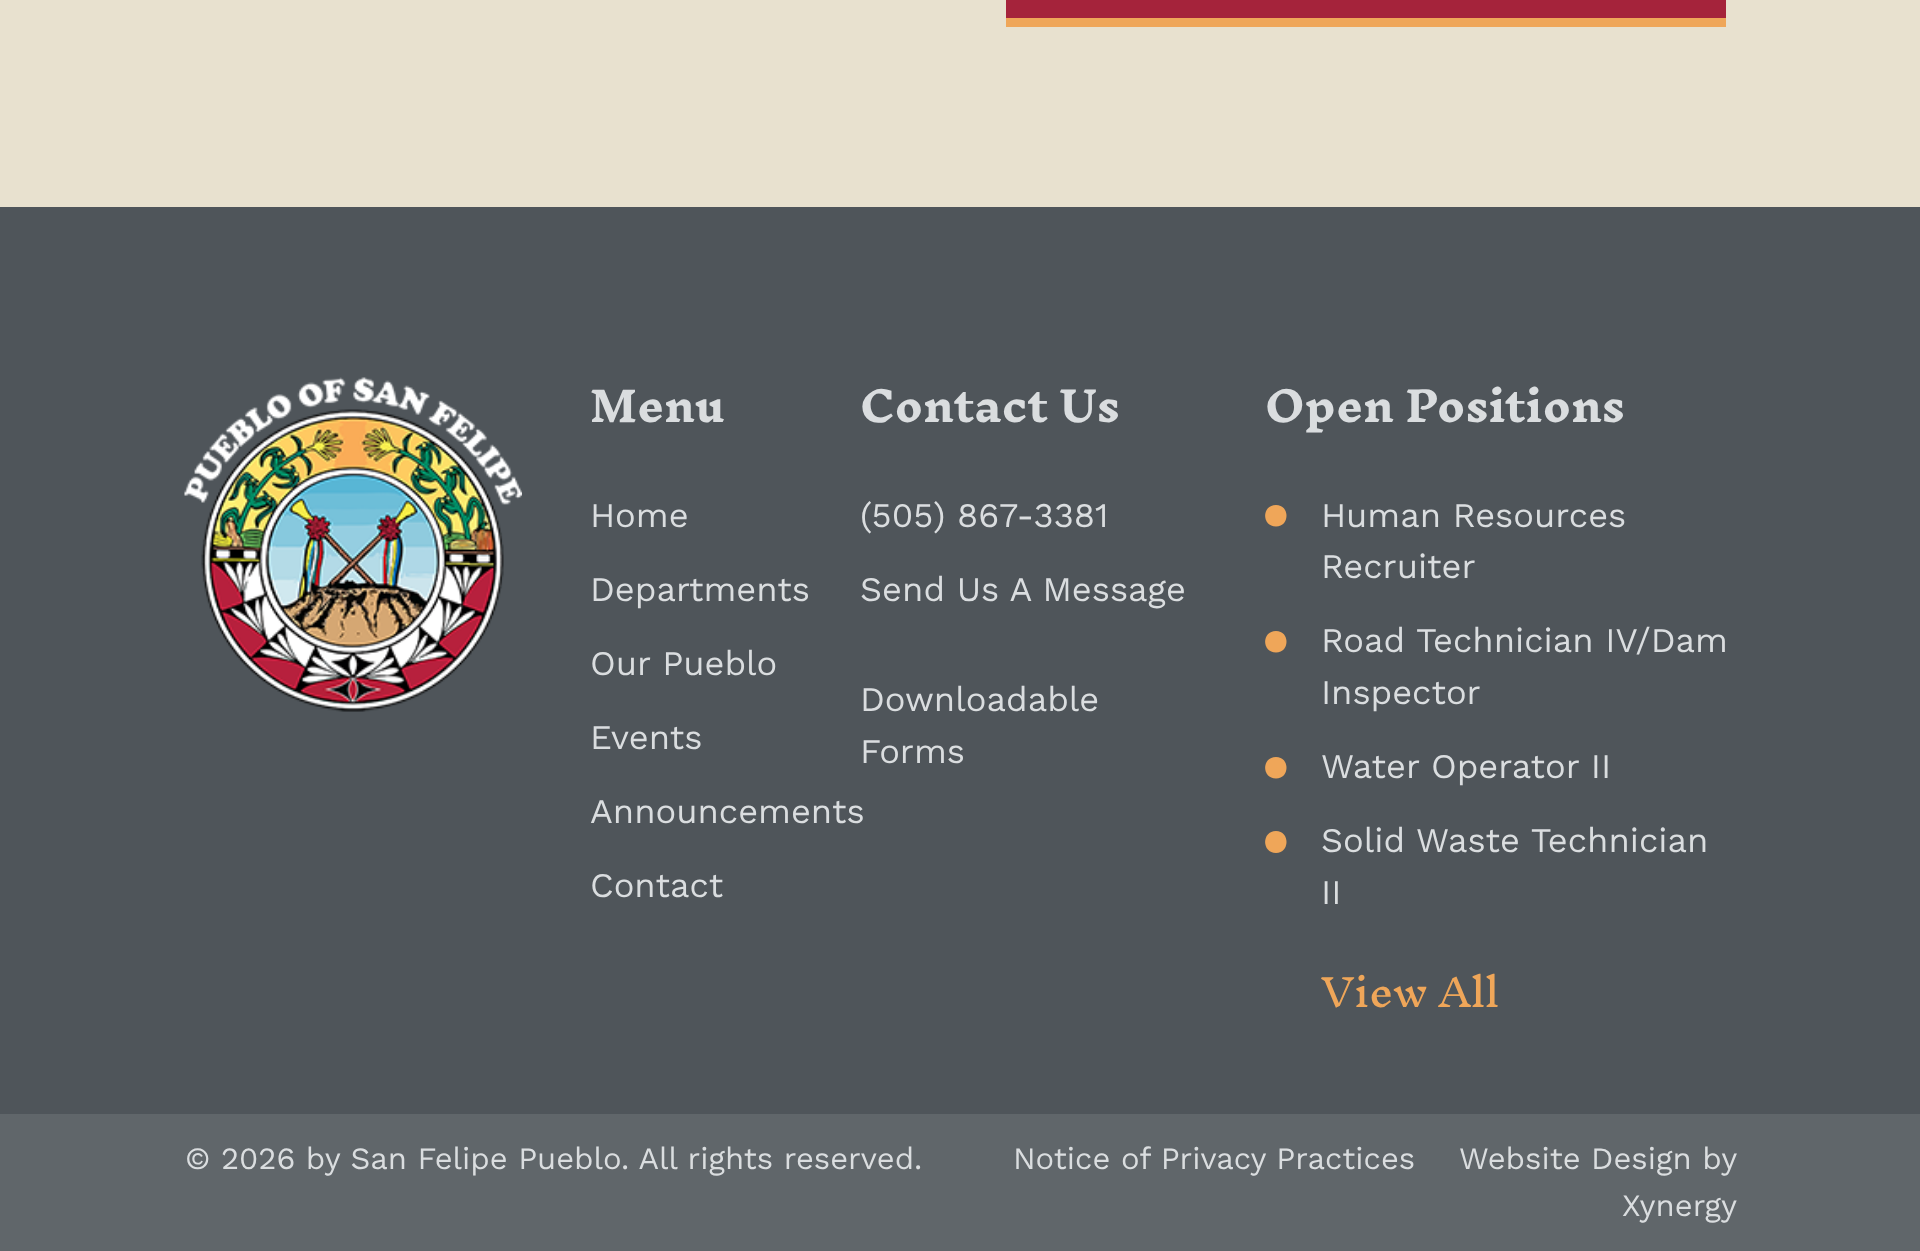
(async () => {
  const canvas = document.querySelector("canvas");
  canvas.width = 1920;
  canvas.height = 1251;
  const ctx = canvas.getContext("2d");
  ctx.miterLimit = 4;
  ctx.fontKerning = "normal";
  async function loadImage(src) {
    const img = new Image();
    img.src = src;
    await img.decode();
    return img;
  }
  let path;

  ctx.fillStyle = "#e8e1cf";
  ctx.fillRect(0, 0, 1920, 1251);
  for (const [x, y, w, h, color] of [
    [1006, 0, 720, 18, "#a5233b"],
    [1006, 18, 720, 9, "#efa659"],
    [0, 207, 1920, 907, "#4f555a"],
  ]) {
    ctx.fillStyle = color;
    ctx.fillRect(x, y, w, h);
  }
  ctx.drawImage(await loadImage("img/1.png"), 184, 377, 338, 335);
  ctx.fillStyle = "#efa659";
  path = new Path2D("M1276 505C1261.5 505 1261.5 526.5 1276 526.5C1290 526.5 1290 505 1276 505Z");
  ctx.fill(path);
  path = new Path2D("M1276 631C1261.5 631 1261.5 652.5 1276 652.5C1290 652.5 1290 631 1276 631Z");
  ctx.fill(path);
  path = new Path2D("M1276 757C1261.5 757 1261.5 778.5 1276 778.5C1290 778.5 1290 757 1276 757Z");
  ctx.fill(path);
  path = new Path2D("M1276 831C1261.5 831 1261.5 853 1276 853C1290 853 1290 831 1276 831Z");
  ctx.fill(path);
  ctx.fillStyle = "#60666a";
  ctx.fillRect(0, 1114, 1920, 137);
  ctx.font = "bold 41.25px Inknut Antiqua";
  ctx.fillStyle = "#dadddf";
  ctx.fillText("Menu", 590, 422);
  ctx.font = "34.5px Work Sans";
  for (const [text, x, y] of [
    ["Home", 590, 527],
    ["Departments", 590, 601],
    ["Our Pueblo", 590, 675],
    ["Events", 590, 749],
    ["Announcements", 590, 823],
    ["Contact", 590, 897],
  ]) {
    ctx.fillText(text, x, y);
  }
  ctx.font = "bold 41.25px Inknut Antiqua";
  ctx.fillText("Contact Us", 860, 422);
  ctx.font = "34.5px Work Sans";
  for (const [text, x, y] of [
    ["(505) 867-3381", 860, 527],
    ["Send Us A Message", 860, 601],
    ["Downloadable", 860, 711],
    ["Forms", 860, 763],
  ]) {
    ctx.fillText(text, x, y);
  }
  ctx.font = "bold 41.25px Inknut Antiqua";
  ctx.fillText("Open Positions", 1265, 422);
  ctx.font = "34.5px Work Sans";
  for (const [text, x, y] of [
    ["Human Resources", 1321, 527],
    ["Recruiter", 1321, 578],
    ["Road Technician IV/Dam", 1321, 652],
    ["Inspector", 1321, 704],
    ["Water Operator II", 1321, 778],
    ["Solid Waste Technician", 1321, 852],
    ["II", 1321, 904],
  ]) {
    ctx.fillText(text, x, y);
  }
  ctx.font = "38px Inknut Antiqua";
  ctx.fillStyle = "#efa659";
  ctx.fillText("View All", 1321, 1007);
  ctx.font = "31px Work Sans";
  ctx.fillStyle = "#dadddf";
  for (const [text, x, y] of [
    ["© 2026 by San Felipe Pueblo. All rights reserved.", 185, 1169],
    ["Notice of Privacy Practices", 1013, 1169],
    ["Website Design by", 1459, 1169],
    ["Xynergy", 1622, 1216],
  ]) {
    ctx.fillText(text, x, y);
  }
})();
